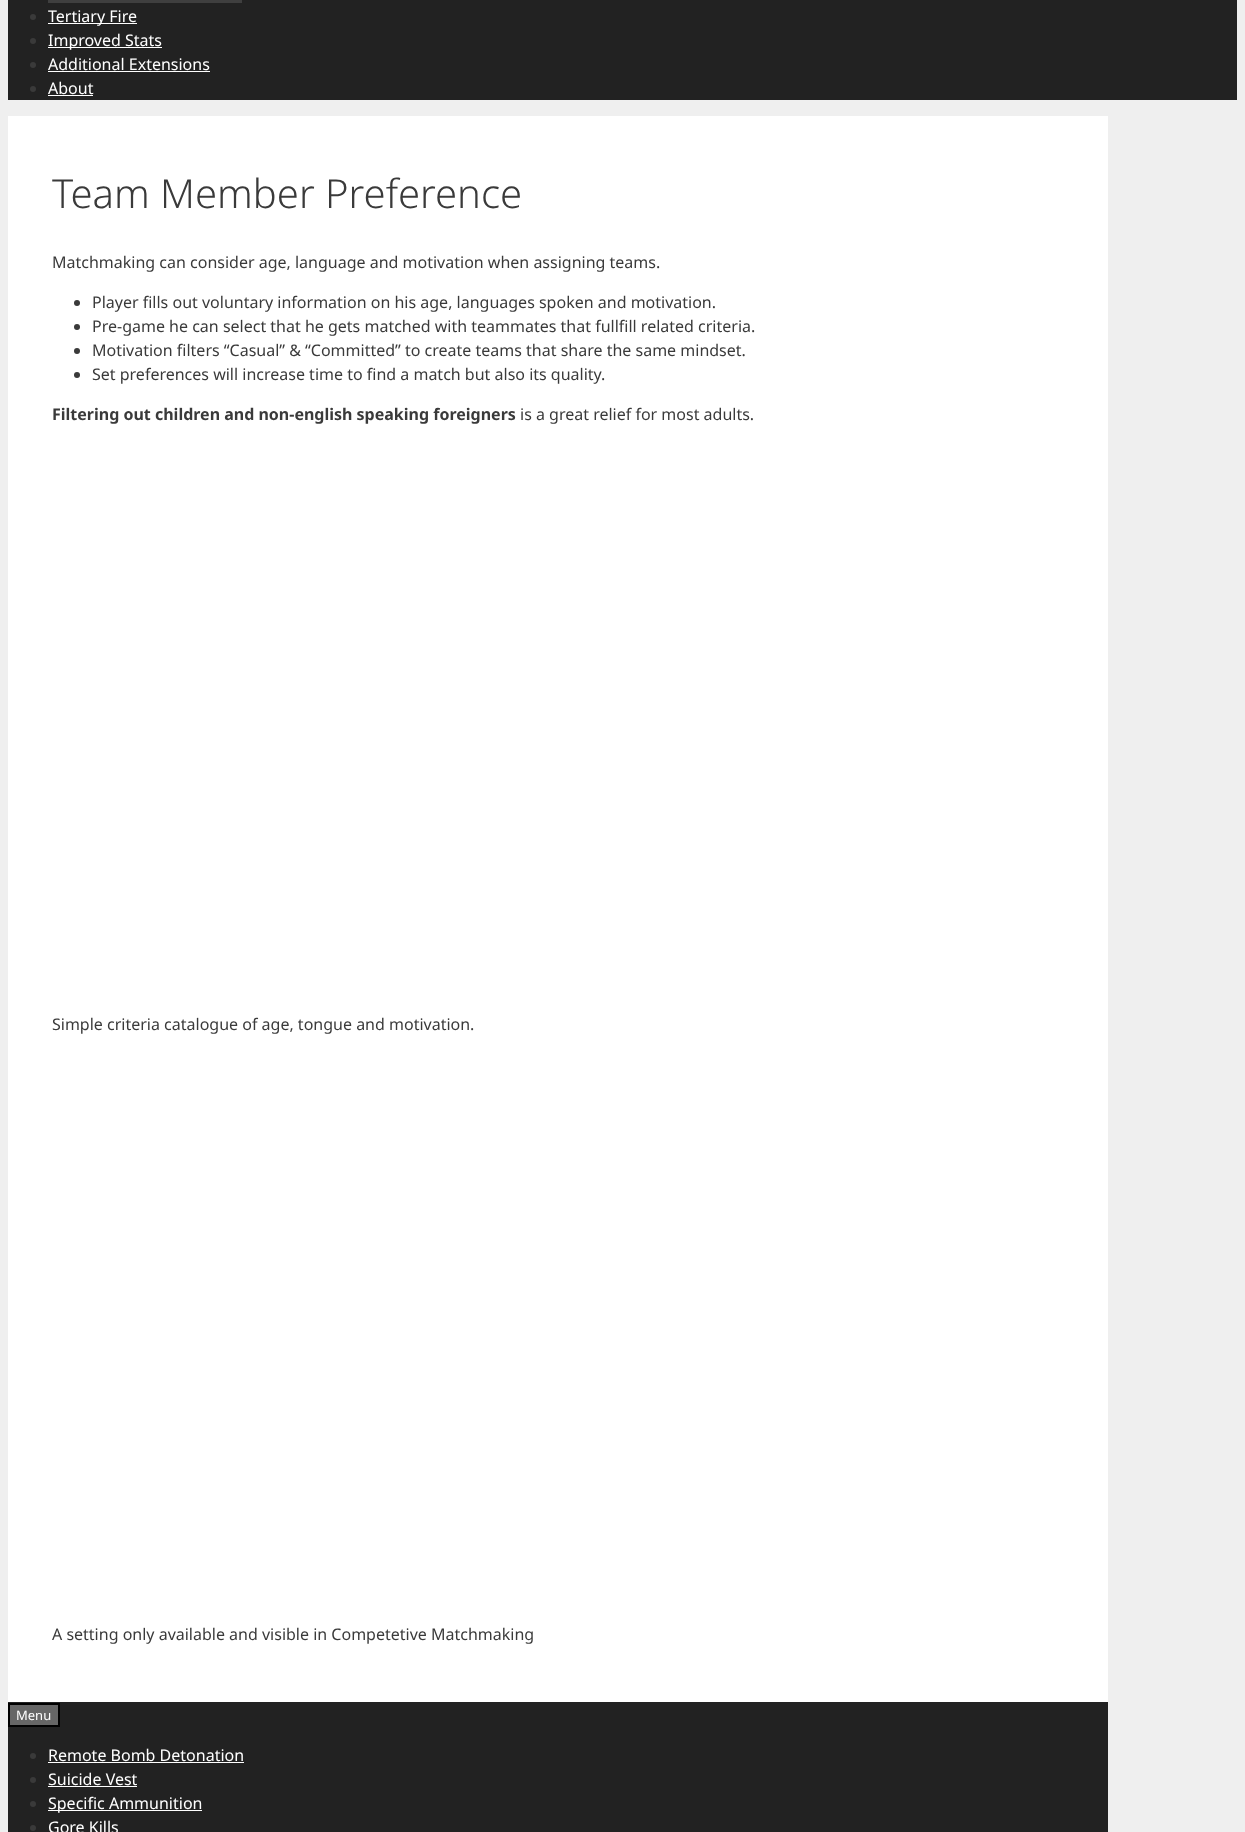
(async () => {
  const canvas = document.querySelector("canvas");
  canvas.width = 1245;
  canvas.height = 1832;
  const ctx = canvas.getContext("2d");
  ctx.miterLimit = 4;
  ctx.fontKerning = "normal";

  ctx.fillStyle = "#efefef";
  ctx.fillRect(0, 0, 1245, 1832);
  ctx.fillStyle = "#222222";
  ctx.fillRect(8, 0, 1229, 100);
  ctx.fillStyle = "#3f3f3f";
  ctx.fillRect(48, 0, 194, 3);
  ctx.fillStyle = "#3a3a3a";
  ctx.beginPath();
  ctx.arc(33, 17, 3, 0, Math.PI * 2);
  ctx.fill();
  ctx.fillStyle = "#ffffff";
  ctx.fillRect(48, 23, 89, 1);
  ctx.fillStyle = "#3a3a3a";
  ctx.beginPath();
  ctx.arc(33, 41, 3, 0, Math.PI * 2);
  ctx.fill();
  ctx.fillStyle = "#ffffff";
  ctx.fillRect(48, 47, 114, 1);
  ctx.fillStyle = "#3a3a3a";
  ctx.beginPath();
  ctx.arc(33, 65, 3, 0, Math.PI * 2);
  ctx.fill();
  ctx.fillStyle = "#ffffff";
  ctx.fillRect(48, 71, 162, 1);
  ctx.fillStyle = "#3a3a3a";
  ctx.beginPath();
  ctx.arc(33, 89, 3, 0, Math.PI * 2);
  ctx.fill();
  ctx.fillStyle = "#ffffff";
  ctx.fillRect(48, 95, 45, 1);
  ctx.fillRect(8, 116, 1100, 1586);
  ctx.fillStyle = "#3a3a3a";
  ctx.beginPath();
  ctx.arc(77, 303, 3, 0, Math.PI * 2);
  ctx.fill();
  ctx.beginPath();
  ctx.arc(77, 327, 3, 0, Math.PI * 2);
  ctx.fill();
  ctx.beginPath();
  ctx.arc(77, 351, 3, 0, Math.PI * 2);
  ctx.fill();
  ctx.beginPath();
  ctx.arc(77, 375, 3, 0, Math.PI * 2);
  ctx.fill();
  ctx.fillStyle = "#222222";
  ctx.fillRect(8, 1702, 1100, 130);
  ctx.fillStyle = "#666666";
  ctx.beginPath();
  ctx.rect(9, 1704, 50, 22);
  ctx.fill();
  ctx.strokeStyle = "#000000";
  ctx.lineWidth = 2;
  ctx.stroke();
  ctx.fillStyle = "#3a3a3a";
  ctx.beginPath();
  ctx.arc(33, 1756, 3, 0, Math.PI * 2);
  ctx.fill();
  ctx.fillStyle = "#ffffff";
  ctx.fillRect(48, 1762, 196, 1);
  ctx.fillStyle = "#3a3a3a";
  ctx.beginPath();
  ctx.arc(33, 1780, 3, 0, Math.PI * 2);
  ctx.fill();
  ctx.fillStyle = "#ffffff";
  ctx.fillRect(48, 1786, 89, 1);
  ctx.fillStyle = "#3a3a3a";
  ctx.beginPath();
  ctx.arc(33, 1804, 3, 0, Math.PI * 2);
  ctx.fill();
  ctx.fillStyle = "#ffffff";
  ctx.fillRect(48, 1810, 154, 1);
  ctx.fillStyle = "#3a3a3a";
  ctx.beginPath();
  ctx.arc(33, 1828, 3, 0, Math.PI * 2);
  ctx.fill();
  ctx.font = "16px Noto Sans";
  ctx.fillStyle = "#ffffff";
  for (const [text, x, y] of [
    ["Tertiary Fire", 48, 22],
    ["Improved Stats", 48, 46],
    ["Additional Extensions", 48, 70],
    ["About", 48, 94],
  ]) {
    ctx.fillText(text, x, y);
  }
  ctx.font = "300 40px Noto Sans";
  ctx.fillStyle = "#3a3a3a";
  ctx.fillText("Team Member Preference", 52, 208);
  ctx.font = "16px Noto Sans";
  for (const [text, x, y] of [
    ["Matchmaking can consider age, language and motivation when assigning teams.", 52, 268],
    ["Player fills out voluntary information on his age, languages spoken and motivation.", 92, 308],
    ["Pre-game he can select that he gets matched with teammates that fullfill related criteria.", 92, 332],
    ["Motivation filters “Casual” & “Committed” to create teams that share the same mindset.", 92, 356],
    ["Set preferences will increase time to find a match but also its quality.", 92, 380],
  ]) {
    ctx.fillText(text, x, y);
  }
  ctx.font = "bold 16px Noto Sans";
  ctx.fillText("Filtering out children and non-english speaking foreigners", 52, 420);
  ctx.font = "16px Noto Sans";
  for (const [text, x, y] of [
    ["is a great relief for most adults.", 520, 420],
    ["Simple criteria catalogue of age, tongue and motivation.", 52, 1030],
    ["A setting only available and visible in Competetive Matchmaking", 52, 1640],
  ]) {
    ctx.fillText(text, x, y);
  }
  ctx.font = "13px Noto Sans";
  ctx.fillStyle = "#ffffff";
  ctx.fillText("Menu", 16, 1720);
  ctx.font = "16px Noto Sans";
  for (const [text, x, y] of [
    ["Remote Bomb Detonation", 48, 1761],
    ["Suicide Vest", 48, 1785],
    ["Specific Ammunition", 48, 1809],
    ["Gore Kills", 48, 1833],
  ]) {
    ctx.fillText(text, x, y);
  }
})();
